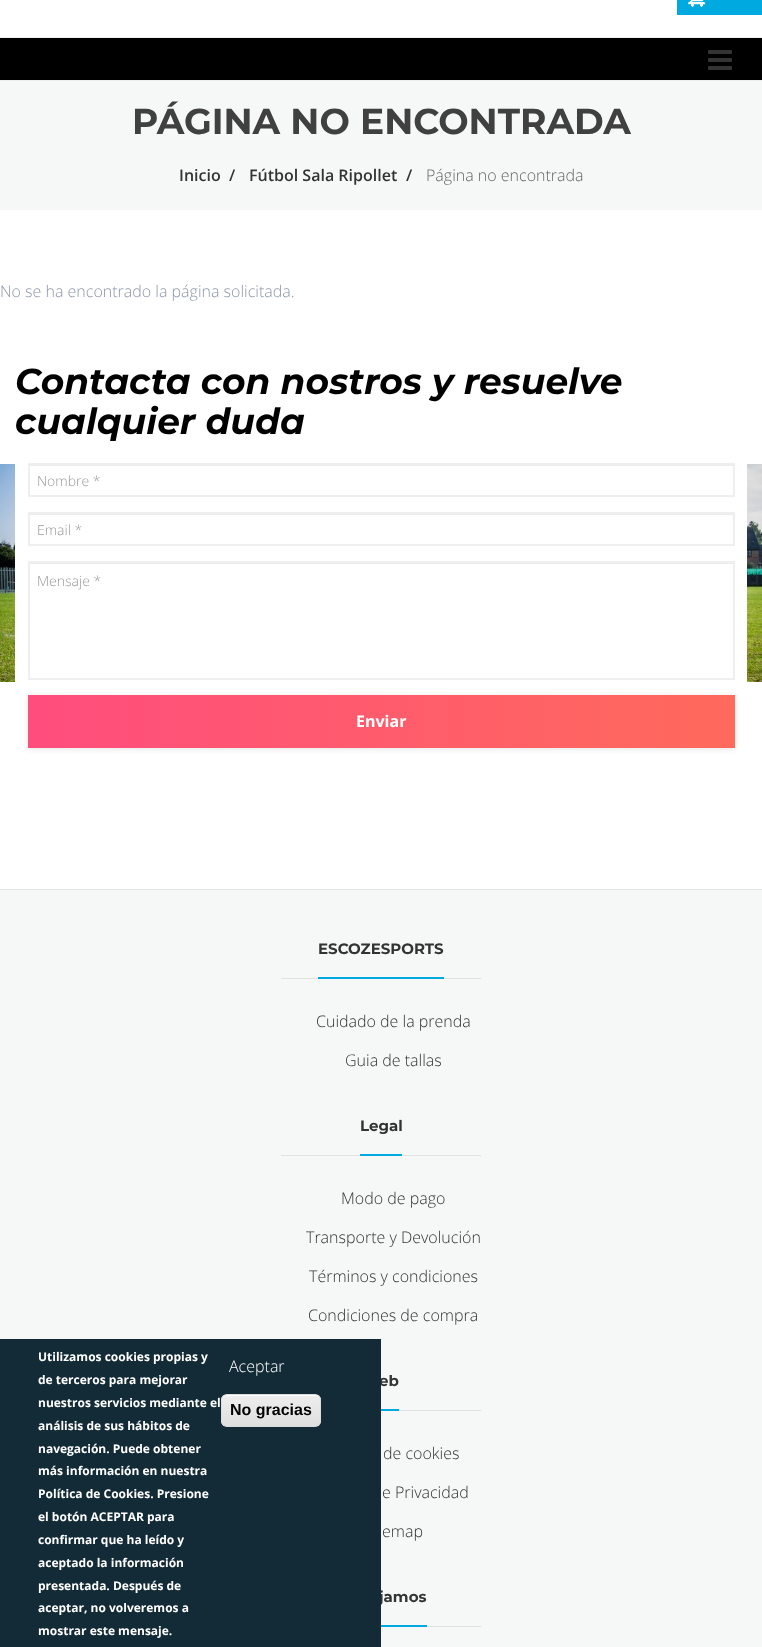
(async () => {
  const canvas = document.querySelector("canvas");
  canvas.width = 762;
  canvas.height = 1647;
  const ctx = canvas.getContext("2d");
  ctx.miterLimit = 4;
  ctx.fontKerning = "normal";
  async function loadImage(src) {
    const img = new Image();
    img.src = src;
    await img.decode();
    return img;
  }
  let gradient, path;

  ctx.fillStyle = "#ffffff";
  ctx.fillRect(0, 0, 762, 1647);
  ctx.fillStyle = "#00a9e0";
  ctx.fillRect(677, 0, 85, 15);
  ctx.drawImage(await loadImage("img/1.png"), 688, 0, 18, 7);
  for (const [x, y, w, h, color] of [
    [0, 38, 762, 42, "#000000"],
    [0, 37, 762, 1, "#eeeeee"],
    [0, 80, 762, 1, "#eeeeee"],
  ]) {
    ctx.fillStyle = color;
    ctx.fillRect(x, y, w, h);
  }
  ctx.drawImage(await loadImage("img/2.png"), 708, 50, 24, 20);
  ctx.fillStyle = "#f6f7f7";
  ctx.fillRect(0, 81, 762, 129);
  ctx.drawImage(await loadImage("img/3.png"), 0, 464, 762, 218);
  ctx.fillStyle = "#ffffff";
  ctx.beginPath();
  ctx.roundRect(15, 451, 732, 325, 2.5);
  ctx.fill();
  ctx.fillStyle = "#ececec";
  ctx.fillRect(30, 465, 703, 1);
  ctx.strokeStyle = "#edeff0";
  ctx.lineWidth = 2;
  ctx.strokeRect(29, 464, 705, 32);
  ctx.fillRect(30, 514, 703, 1);
  ctx.strokeRect(29, 513, 705, 32);
  ctx.fillRect(30, 563, 703, 1);
  ctx.strokeRect(29, 562, 705, 117);
  ctx.fillStyle = "rgba(0, 0, 0, 0.1)";
  ctx.filter = "blur(3px)";
  ctx.beginPath();
  ctx.rect(28, 696, 707, 53);
  ctx.fill();
  ctx.filter = "none";
  gradient = ctx.createLinearGradient(28, 722, 735, 722);
  gradient.addColorStop(0, "#ff4d7e");
  gradient.addColorStop(1, "#ff6a5b");
  ctx.fillStyle = gradient;
  ctx.fillRect(28, 695, 707, 53);
  for (const [x, y, w, h, color] of [
    [0, 890, 762, 757, "#f6f7f7"],
    [0, 889, 762, 1, "#e5e5e5"],
    [281, 978, 200, 1, "#e2e2e2"],
    [318, 977, 126, 2, "#00a9e0"],
    [281, 1155, 200, 1, "#e2e2e2"],
    [360, 1154, 42, 2, "#00a9e0"],
    [399, 1410, 82, 1, "#e2e2e2"],
    [381, 1409, 18, 2, "#00a9e0"],
    [427, 1626, 54, 1, "#e2e2e2"],
    [381, 1625, 46, 2, "#00a9e0"],
  ]) {
    ctx.fillStyle = color;
    ctx.fillRect(x, y, w, h);
  }
  ctx.font = "bold 36px Montserrat";
  ctx.fillStyle = "#404040";
  ctx.fillText("PÁGINA NO ENCONTRADA", 132, 134);
  ctx.font = "600 16px Open Sans";
  ctx.fillStyle = "#333333";
  for (const [text, x, y] of [
    ["Inicio", 179, 181],
    ["/", 229, 181],
    ["Fútbol Sala Ripollet", 249, 181],
    ["/", 406, 181],
  ]) {
    ctx.fillText(text, x, y);
  }
  ctx.font = "300 16px Open Sans";
  ctx.fillStyle = "#666666";
  ctx.fillText("Página no encontrada", 426, 181);
  ctx.fillStyle = "#8d97ad";
  ctx.fillText("No se ha encontrado la página solicitada.", 0, 297);
  ctx.font = "italic bold 36px Montserrat";
  ctx.fillStyle = "#000000";
  ctx.fillText("Contacta con nostros y resuelve", 15, 394);
  ctx.fillText("cualquier duda", 15, 434);
  ctx.font = "300 14px Open Sans";
  ctx.fillStyle = "#999999";
  for (const [text, x, y] of [
    ["Nombre *", 37, 486],
    ["Email *", 37, 535],
    ["Mensaje *", 37, 586],
  ]) {
    ctx.fillText(text, x, y);
  }
  ctx.font = "bold 16px Open Sans";
  ctx.fillStyle = "#ffffff";
  ctx.fillText("Enviar", 356, 727);
  ctx.font = "bold 15px Montserrat";
  ctx.fillStyle = "#333333";
  ctx.fillText("ESCOZESPORTS", 318, 954);
  ctx.font = "300 16px Open Sans";
  ctx.fillText("Cuidado de la prenda", 316, 1027);
  ctx.fillText("Guia de tallas", 345, 1066);
  ctx.font = "bold 15px Montserrat";
  ctx.fillText("Legal", 360, 1131);
  ctx.font = "300 16px Open Sans";
  for (const [text, x, y] of [
    ["Modo de pago", 341, 1204],
    ["Transporte y Devolución", 306, 1243],
    ["Términos y condiciones", 309, 1282],
    ["Condiciones de compra", 308, 1321],
  ]) {
    ctx.fillText(text, x, y);
  }
  ctx.font = "bold 15px Montserrat";
  ctx.fillText("eb", 379, 1386);
  ctx.font = "300 16px Open Sans";
  for (const [text, x, y] of [
    ["de cookies", 383, 1459],
    ["e Privacidad", 382, 1498],
    ["emap", 382, 1537],
  ]) {
    ctx.fillText(text, x, y);
  }
  ctx.font = "bold 15px Montserrat";
  ctx.fillText("jamos", 379, 1602);
  ctx.fillStyle = "#132b37";
  ctx.fillRect(0, 1339, 381, 308);
  ctx.font = "bold 12px Open Sans";
  ctx.fillStyle = "#ffffff";
  for (const [text, x, y] of [
    ["Utilizamos cookies propias y", 38, 1361],
    ["de terceros para mejorar", 38, 1384],
    ["nuestros servicios mediante el", 38, 1407],
    ["análisis de sus hábitos de", 38, 1430],
    ["navegación. Puede obtener", 38, 1453],
    ["más información en nuestra", 38, 1475],
    ["Política de Cookies. Presione", 38, 1498],
    ["el botón ACEPTAR para", 38, 1521],
    ["confirmar que ha leído y", 38, 1544],
    ["aceptado la información", 38, 1567],
    ["presentada. Después de", 38, 1590],
    ["aceptar, no volveremos a", 38, 1612],
    ["mostrar este mensaje.", 38, 1635],
  ]) {
    ctx.fillText(text, x, y);
  }
  ctx.font = "300 16px Open Sans";
  ctx.fillText("Aceptar", 229, 1372);
  ctx.save();
  ctx.beginPath();
  ctx.roundRect(221, 1394, 100, 33, 6);
  ctx.clip();
  gradient = ctx.createLinearGradient(271, 1395, 271, 1426);
  gradient.addColorStop(0.05, "#ededed");
  gradient.addColorStop(1, "#dfdfdf");
  ctx.fillStyle = gradient;
  ctx.fillRect(221, 1395, 100, 31);
  ctx.restore();
  path = new Path2D("M227 1396H315C318 1396 320 1398 320 1401C320 1391 306 1395 300 1395H242C236 1395 222 1391 222 1401C222 1398 224 1396 227 1396Z");
  ctx.fill(path);
  ctx.beginPath();
  ctx.roundRect(221.5, 1394.5, 99, 32, 5.5);
  ctx.strokeStyle = "#dcdcdc";
  ctx.lineWidth = 1;
  ctx.stroke();
  ctx.font = "bold 16px Liberation Sans";
  ctx.fillStyle = "#000000";
  ctx.fillText("No gracias", 230, 1415);
})();
